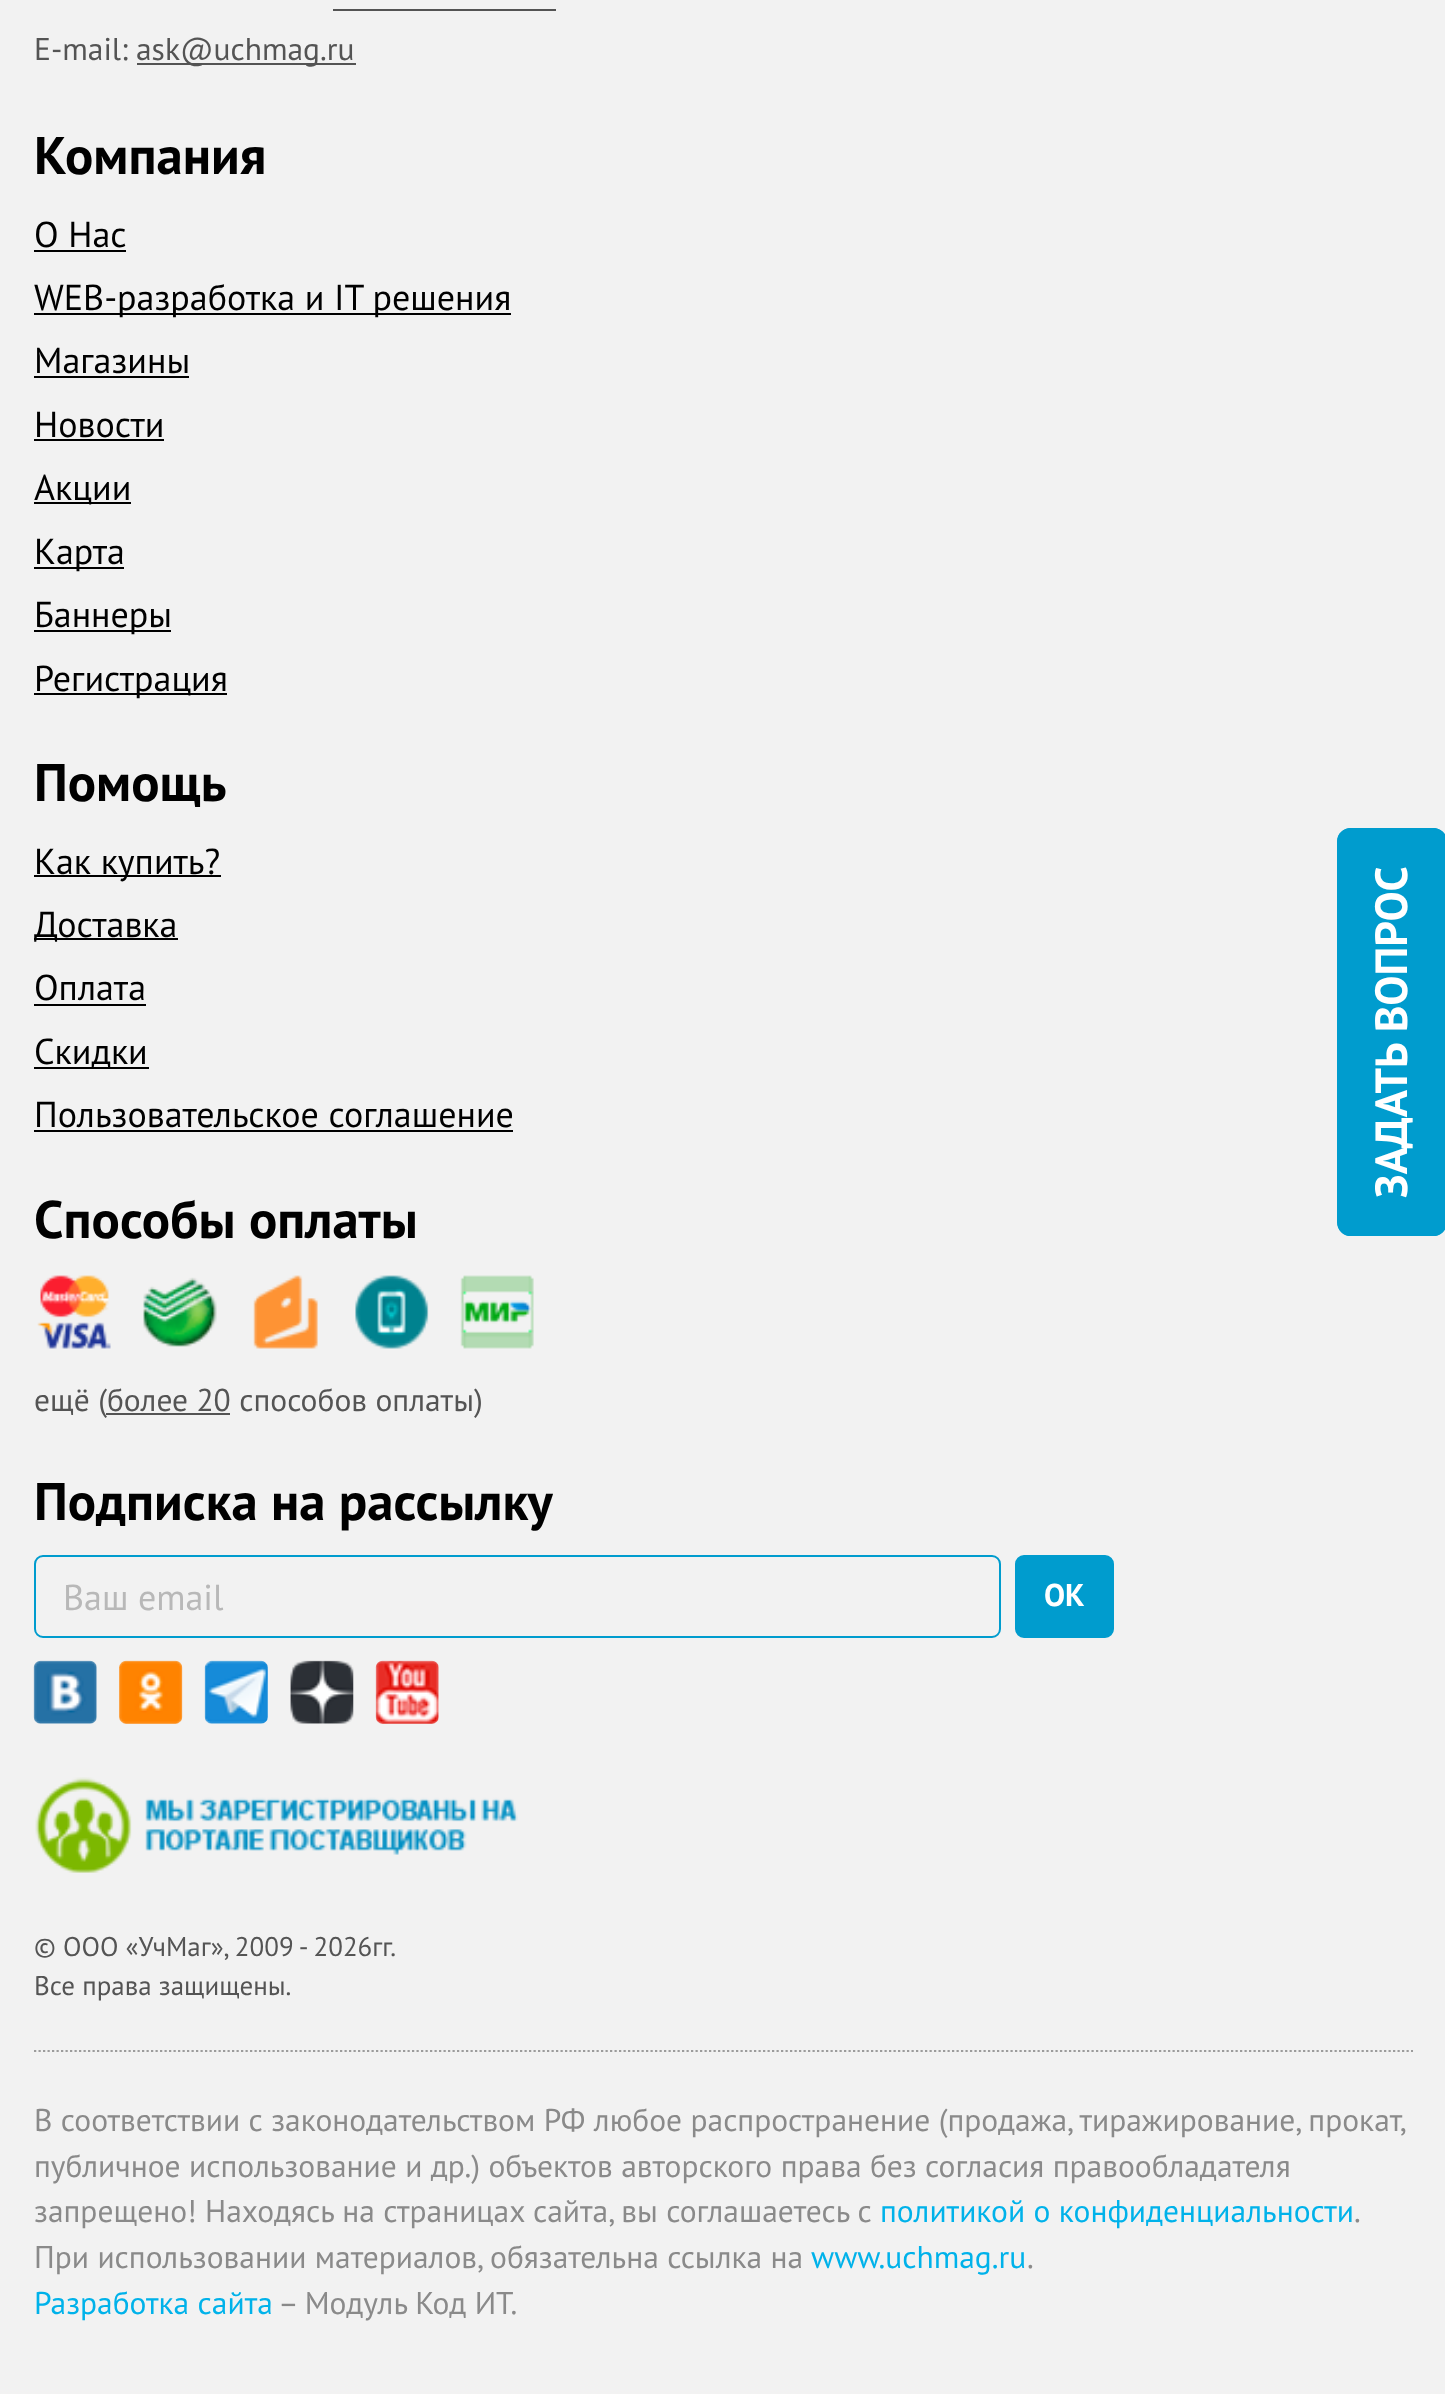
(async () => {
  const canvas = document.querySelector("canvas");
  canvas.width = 1445;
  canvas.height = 2394;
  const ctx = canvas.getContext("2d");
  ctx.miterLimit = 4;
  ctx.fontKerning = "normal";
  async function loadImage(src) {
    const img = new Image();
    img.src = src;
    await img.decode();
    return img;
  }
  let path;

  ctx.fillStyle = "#f2f2f2";
  ctx.fillRect(0, 0, 1445, 2394);
  for (const [x, y, w, h, color] of [
    [333, 9, 223, 2, "#545454"],
    [137, 63, 219, 2, "#545454"],
    [34, 250, 92, 2, "#000000"],
    [34, 313, 477, 2, "#000000"],
    [34, 376, 155, 2, "#000000"],
    [34, 439, 130, 2, "#000000"],
    [34, 502, 97, 2, "#000000"],
    [34, 567, 90, 2, "#000000"],
    [34, 630, 137, 2, "#000000"],
    [34, 693, 193, 2, "#000000"],
    [34, 875, 187, 2, "#000000"],
    [34, 938, 144, 2, "#000000"],
    [34, 1004, 112, 2, "#000000"],
    [34, 1067, 115, 2, "#000000"],
    [34, 1130, 479, 2, "#000000"],
  ]) {
    ctx.fillStyle = color;
    ctx.fillRect(x, y, w, h);
  }
  ctx.drawImage(await loadImage("img/1.png"), 37, 1275, 74, 74);
  ctx.drawImage(await loadImage("img/2.png"), 143, 1277, 74, 70);
  ctx.drawImage(await loadImage("img/3.png"), 253, 1275, 65, 74);
  ctx.drawImage(await loadImage("img/4.png"), 355, 1275, 74, 74);
  ctx.drawImage(await loadImage("img/5.png"), 460, 1275, 74, 74);
  ctx.fillStyle = "#545454";
  ctx.fillRect(106, 1413, 124, 2);
  ctx.beginPath();
  ctx.roundRect(35, 1556, 965, 81, 8);
  ctx.strokeStyle = "#009cce";
  ctx.lineWidth = 2;
  ctx.stroke();
  ctx.fillStyle = "#009cce";
  ctx.beginPath();
  ctx.roundRect(1016, 1556, 97, 81, 8);
  ctx.fill();
  ctx.stroke();
  ctx.drawImage(await loadImage("img/6.png"), 33, 1660, 64, 64);
  ctx.drawImage(await loadImage("img/7.png"), 119, 1660, 64, 64);
  ctx.drawImage(await loadImage("img/8.png"), 204, 1660, 64, 64);
  ctx.drawImage(await loadImage("img/9.png"), 290, 1660, 64, 64);
  ctx.drawImage(await loadImage("img/10.png"), 375, 1660, 64, 64);
  ctx.drawImage(await loadImage("img/11.png"), 35, 1777, 483, 96);
  path = new Path2D("M34 2051H1413");
  ctx.strokeStyle = "#9c9c9c";
  ctx.lineWidth = 2.2;
  ctx.setLineDash([2.25, 2.25]);
  ctx.stroke(path);
  path = new Path2D("M1337 1222V841C1337 834 1343 828 1351 828H1433C1441 828 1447 834 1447 841V1222C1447 1230 1441 1236 1433 1236H1351C1343 1236 1337 1230 1337 1222Z");
  ctx.fill(path);
  path = new Path2D("M1338.5 1222.5V841C1338.5 834.5 1344 829 1351 829H1433C1440 829 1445.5 834.5 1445.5 841V1222.5C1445.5 1229.5 1440 1235 1433 1235H1351C1344 1235 1338.5 1229.5 1338.5 1222.5Z");
  ctx.strokeStyle = "#009cce";
  ctx.setLineDash([]);
  ctx.stroke(path);
  ctx.font = "31.5px PT Sans";
  ctx.fillStyle = "#545454";
  ctx.fillText("E-mail:", 34, 60);
  ctx.fillText("ask@uchmag.ru", 136, 60);
  ctx.font = "bold 52.75px PT Sans";
  ctx.fillStyle = "#000000";
  ctx.fillText("Компания", 34, 174);
  ctx.font = "36px PT Sans";
  for (const [text, x, y] of [
    ["О Нас", 34, 247],
    ["WEB-разработка и IT решения", 34, 310],
    ["Магазины", 34, 373],
    ["Новости", 34, 437],
    ["Акции", 34, 500],
    ["Карта", 34, 564],
    ["Баннеры", 34, 627],
    ["Регистрация", 34, 691],
  ]) {
    ctx.fillText(text, x, y);
  }
  ctx.font = "bold 52.75px PT Sans";
  ctx.fillText("Помощь", 34, 801);
  ctx.font = "36px PT Sans";
  for (const [text, x, y] of [
    ["Как купить?", 34, 874],
    ["Доставка", 34, 937],
    ["Оплата", 34, 1000],
    ["Скидки", 34, 1064],
    ["Пользовательское соглашение", 34, 1127],
  ]) {
    ctx.fillText(text, x, y);
  }
  ctx.font = "bold 52.75px PT Sans";
  ctx.fillText("Способы оплаты", 34, 1238);
  ctx.font = "31.5px PT Sans";
  ctx.fillStyle = "#545454";
  ctx.fillText("ещё (более 20 способов оплаты)", 34, 1411);
  ctx.font = "bold 52.75px PT Sans";
  ctx.fillStyle = "#000000";
  ctx.fillText("Подписка на рассылку", 34, 1520);
  ctx.font = "36px PT Sans";
  ctx.fillStyle = "#b8b8b8";
  ctx.fillText("Ваш email", 63, 1610);
  ctx.font = "bold 31.5px PT Sans";
  ctx.fillStyle = "#ffffff";
  ctx.fillText("ОК", 1044, 1606);
  ctx.font = "27px PT Sans";
  ctx.fillStyle = "#545454";
  ctx.fillText("© ООО «УчМаг», 2009 - 2026гг.", 34, 1956);
  ctx.fillText("Все права защищены.", 34, 1995);
  ctx.font = "31.5px PT Sans";
  ctx.fillStyle = "#8a8a8a";
  for (const [text, x, y] of [
    ["В соответствии с законодательством РФ любое распространение (продажа, тиражирование, прокат,", 34, 2131],
    ["публичное использование и др.) объектов авторского права без согласия правообладателя", 34, 2177],
    ["запрещено! Находясь на страницах сайта, вы соглашаетесь с", 34, 2222],
  ]) {
    ctx.fillText(text, x, y);
  }
  ctx.fillStyle = "#00b2ea";
  ctx.fillText("политикой о конфиденциальности", 880, 2222);
  ctx.fillStyle = "#8a8a8a";
  ctx.fillText(".", 1354, 2222);
  ctx.fillText("При использовании материалов, обязательна ссылка на", 34, 2268);
  ctx.fillStyle = "#00b2ea";
  ctx.fillText("www.uchmag.ru", 811, 2268);
  ctx.fillStyle = "#8a8a8a";
  ctx.fillText(".", 1027, 2268);
  ctx.fillStyle = "#00b2ea";
  ctx.fillText("Разработка сайта", 34, 2314);
  ctx.fillStyle = "#8a8a8a";
  ctx.fillText("– Модуль Код ИТ.", 278, 2314);
  ctx.font = "bold 45px PT Sans";
  ctx.fillStyle = "#ffffff";
  ctx.save();
  ctx.translate(1407, 1198);
  ctx.rotate(-90 * Math.PI / 180);
  ctx.fillText("ЗАДАТЬ ВОПРОС", 0, 0);
  ctx.restore();
})();
